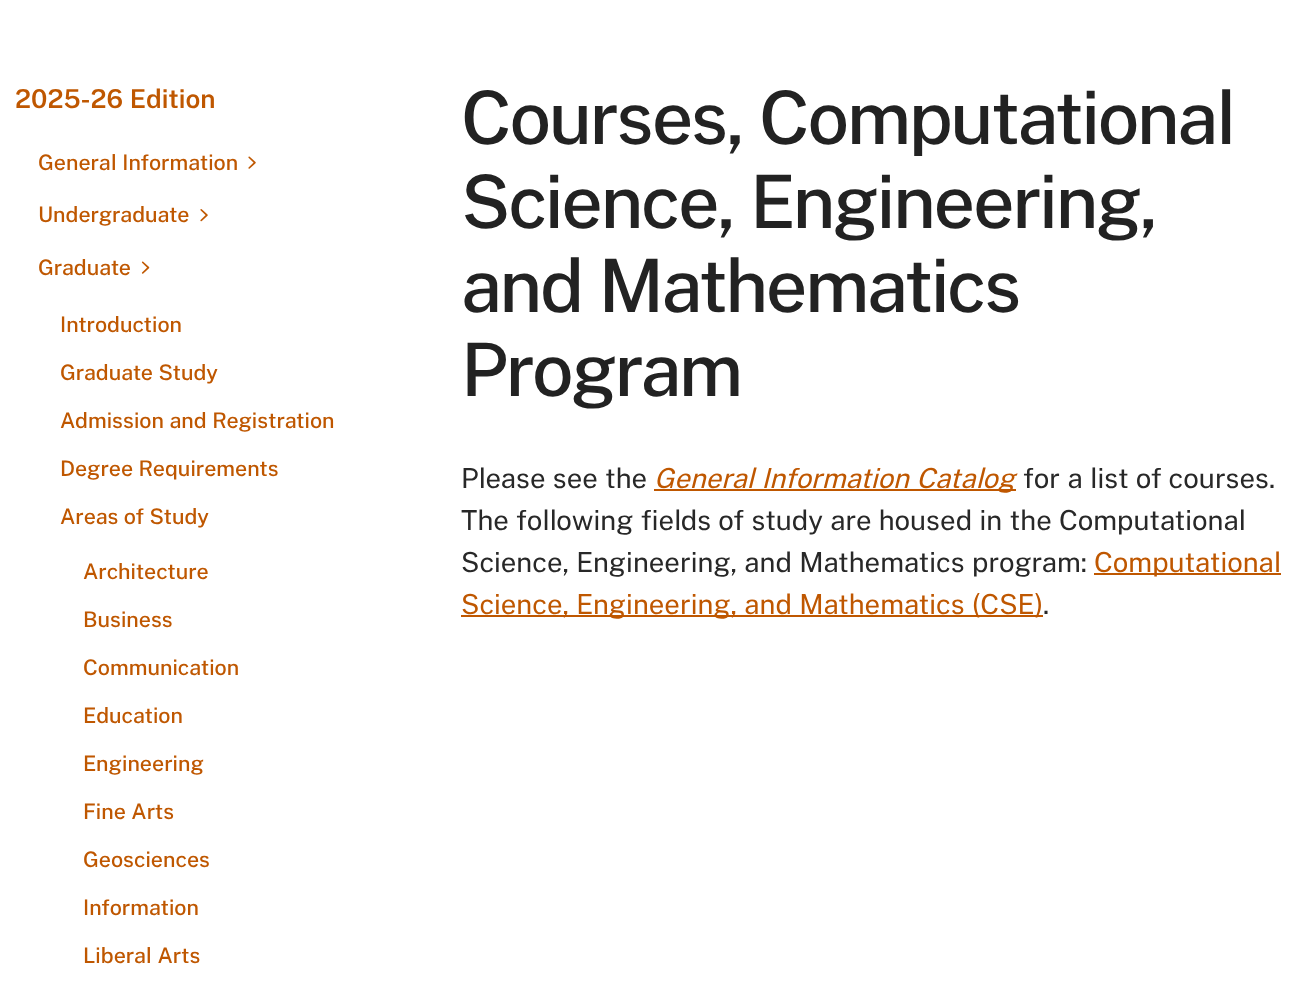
(async () => {
  const canvas = document.querySelector("canvas");
  canvas.width = 1303;
  canvas.height = 999;
  const ctx = canvas.getContext("2d");
  ctx.miterLimit = 4;
  ctx.fontKerning = "normal";
  async function loadImage(src) {
    const img = new Image();
    img.src = src;
    await img.decode();
    return img;
  }

  ctx.fillStyle = "#ffffff";
  ctx.fillRect(0, 0, 1303, 999);
  ctx.drawImage(await loadImage("img/1.png"), 248, 156, 8, 13);
  ctx.drawImage(await loadImage("img/2.png"), 200, 209, 8, 13);
  ctx.drawImage(await loadImage("img/3.png"), 141, 261, 9, 13);
  for (const [x, y, w, h, color] of [
    [654, 489, 362, 2, "#bf5700"],
    [1094, 573, 187, 2, "#bf5700"],
    [461, 615, 582, 2, "#bf5700"],
  ]) {
    ctx.fillStyle = color;
    ctx.fillRect(x, y, w, h);
  }
  ctx.font = "600 25.5px '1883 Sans'";
  ctx.fillText("2025-26 Edition", 15, 108);
  ctx.font = "500 21px '1883 Sans'";
  for (const [text, x, y] of [
    ["General Information", 38, 170],
    ["Undergraduate", 38, 222],
    ["Graduate", 38, 275],
    ["Introduction", 60, 332],
    ["Graduate Study", 60, 380],
    ["Admission and Registration", 60, 428],
    ["Degree Requirements", 60, 476],
    ["Areas of Study", 60, 524],
    ["Architecture", 83, 579],
    ["Business", 83, 627],
    ["Communication", 83, 675],
    ["Education", 83, 723],
    ["Engineering", 83, 771],
    ["Fine Arts", 83, 819],
    ["Geosciences", 83, 867],
    ["Information", 83, 915],
    ["Liberal Arts", 83, 963],
  ]) {
    ctx.fillText(text, x, y);
  }
  ctx.letterSpacing = "-2.25px";
  ctx.font = "500 72px '1883 Sans'";
  ctx.fillStyle = "#222222";
  for (const [text, x, y] of [
    ["Courses, Computational", 461, 144],
    ["Science, Engineering,", 461, 228],
    ["and Mathematics", 461, 312],
    ["Program", 461, 396],
  ]) {
    ctx.fillText(text, x, y);
  }
  ctx.letterSpacing = "0px";
  ctx.font = "27px '1883 Sans'";
  ctx.fillStyle = "#282828";
  ctx.fillText("Please see the", 461, 488);
  ctx.font = "italic 27px '1883 Sans'";
  ctx.fillStyle = "#bf5700";
  ctx.fillText("General Information Catalog", 654, 488);
  ctx.font = "27px '1883 Sans'";
  ctx.fillStyle = "#282828";
  for (const [text, x, y] of [
    ["for a list of courses.", 1023, 488],
    ["The following fields of study are housed in the Computational", 461, 530],
    ["Science, Engineering, and Mathematics program:", 461, 572],
  ]) {
    ctx.fillText(text, x, y);
  }
  ctx.fillStyle = "#bf5700";
  ctx.fillText("Computational", 1094, 572);
  ctx.fillText("Science, Engineering, and Mathematics (CSE)", 461, 614);
  ctx.fillStyle = "#282828";
  ctx.fillText(".", 1043, 614);
})();
